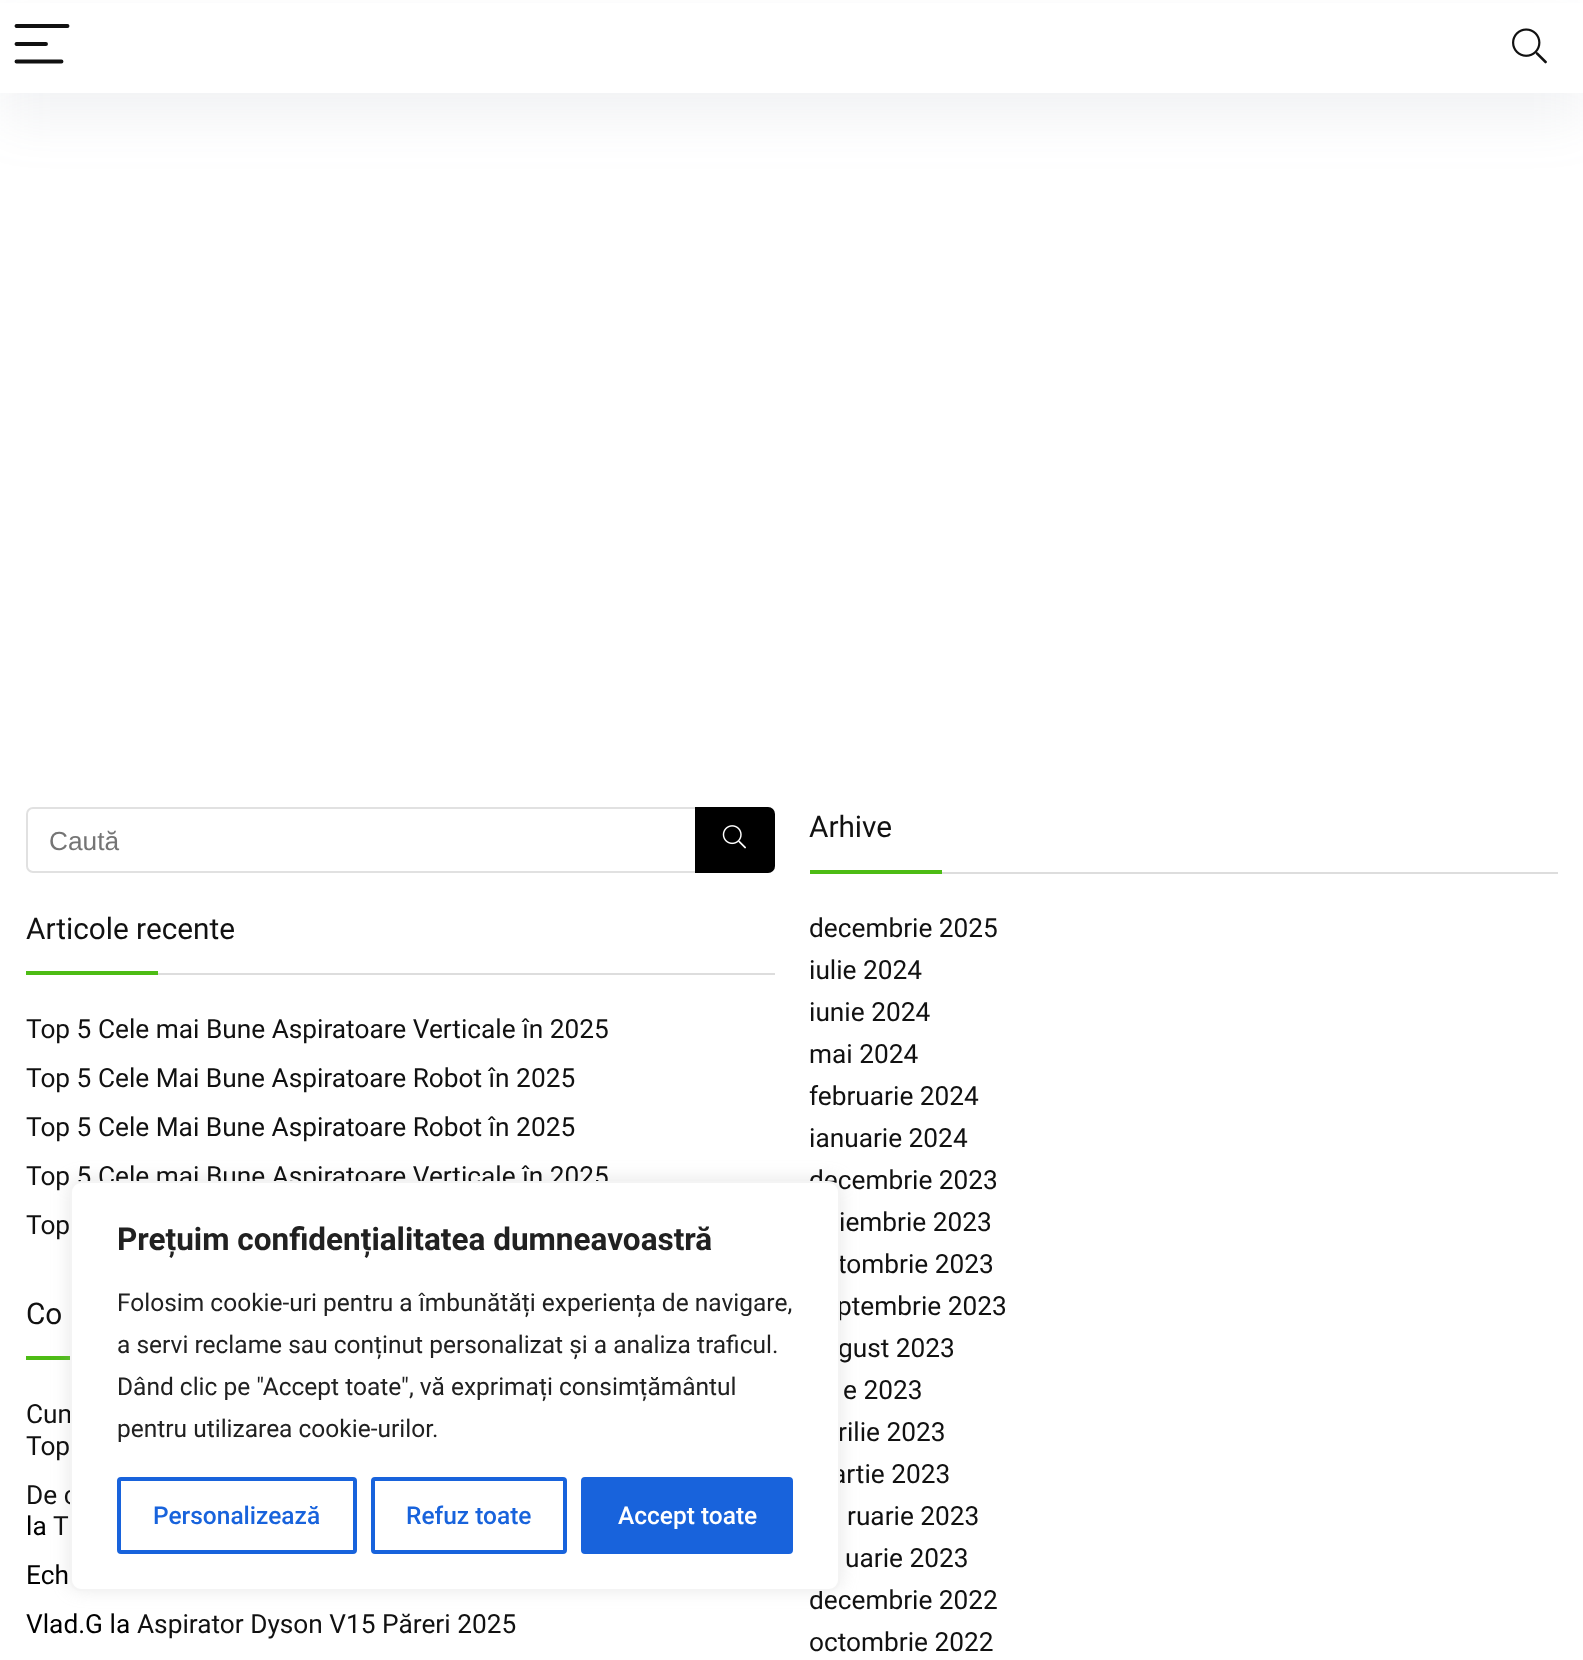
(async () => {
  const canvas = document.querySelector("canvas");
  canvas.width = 1583;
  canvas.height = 1660;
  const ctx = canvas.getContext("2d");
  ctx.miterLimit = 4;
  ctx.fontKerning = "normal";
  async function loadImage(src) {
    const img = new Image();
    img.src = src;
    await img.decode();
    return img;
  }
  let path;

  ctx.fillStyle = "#ffffff";
  ctx.fillRect(0, 0, 1583, 1660);
  ctx.fillStyle = "rgba(119, 123, 146, 0.1)";
  ctx.filter = "blur(26px)";
  ctx.beginPath();
  ctx.rect(0, 26, 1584, 93);
  ctx.fill();
  ctx.filter = "none";
  ctx.fillStyle = "#ffffff";
  ctx.fillRect(0, 3, 1583, 90);
  path = new Path2D("M16.5 26H67.5M16.5 44H46M16.5 61.5H61.5");
  ctx.strokeStyle = "#111111";
  ctx.lineWidth = 3.9;
  ctx.lineCap = "round";
  ctx.stroke(path);
  ctx.drawImage(await loadImage("img/1.png"), 1512, 28, 35, 36);
  ctx.beginPath();
  ctx.roundRect(27, 808, 747, 64, 6);
  ctx.strokeStyle = "#e1e1e1";
  ctx.lineWidth = 2;
  ctx.stroke();
  ctx.fillStyle = "#000000";
  ctx.beginPath();
  ctx.roundRect(695, 807, 80, 66, [0, 7, 7, 0]);
  ctx.fill();
  ctx.drawImage(await loadImage("img/2.png"), 722, 825, 24, 24);
  for (const [x, y, w, h, color] of [
    [942, 872, 616, 2, "#dddddd"],
    [810, 870, 132, 4, "#4dbc15"],
    [158, 973, 617, 2, "#dddddd"],
    [26, 971, 132, 4, "#4dbc15"],
    [26, 1356, 44, 4, "#4dbc15"],
  ]) {
    ctx.fillStyle = color;
    ctx.fillRect(x, y, w, h);
  }
  ctx.fillStyle = "rgba(172, 171, 171, 0.3)";
  ctx.filter = "blur(9px)";
  ctx.beginPath();
  ctx.roundRect(70, 1180, 770, 409, 11);
  ctx.fill();
  ctx.filter = "none";
  ctx.font = "26.25px Liberation Sans";
  ctx.fillStyle = "#757575";
  ctx.fillText("Caută", 49, 850);
  ctx.font = "29.75px Roboto";
  ctx.fillStyle = "#111111";
  ctx.fillText("Arhive", 809, 837);
  ctx.font = "26.25px Roboto";
  for (const [text, x, y] of [
    ["decembrie 2025", 809, 937],
    ["iulie 2024", 809, 979],
    ["iunie 2024", 809, 1021],
    ["mai 2024", 809, 1063],
    ["februarie 2024", 809, 1105],
    ["ianuarie 2024", 809, 1147],
    ["decembrie 2023", 809, 1189],
    ["iembrie 2023", 839, 1231],
    ["tombrie 2023", 838, 1273],
    ["ptembrie 2023", 837, 1315],
    ["gust 2023", 838, 1357],
    ["e 2023", 843, 1399],
    ["rilie 2023", 838, 1441],
    ["artie 2023", 832, 1483],
    ["ruarie 2023", 847, 1525],
    ["uarie 2023", 845, 1567],
    ["decembrie 2022", 809, 1609],
    ["octombrie 2022", 809, 1651],
  ]) {
    ctx.fillText(text, x, y);
  }
  ctx.font = "29.75px Roboto";
  ctx.fillText("Articole recente", 26, 939);
  ctx.font = "26.25px Roboto";
  for (const [text, x, y] of [
    ["Top 5 Cele mai Bune Aspiratoare Verticale în 2025", 26, 1038],
    ["Top 5 Cele Mai Bune Aspiratoare Robot în 2025", 26, 1087],
    ["Top 5 Cele Mai Bune Aspiratoare Robot în 2025", 26, 1136],
    ["Top 5 Cele mai Bune Aspiratoare Verticale în 2025", 26, 1185],
    ["Top", 26, 1234],
  ]) {
    ctx.fillText(text, x, y);
  }
  ctx.font = "29.75px Roboto";
  ctx.fillText("Co", 26, 1324);
  ctx.font = "26.25px Roboto";
  for (const [text, x, y] of [
    ["Cum", 26, 1423],
    ["Top", 26, 1455],
    ["De c", 26, 1504],
  ]) {
    ctx.fillText(text, x, y);
  }
  ctx.fillStyle = "#000000";
  ctx.fillText("la", 26, 1535);
  ctx.fillStyle = "#111111";
  ctx.fillText("T", 53, 1535);
  ctx.fillStyle = "#000000";
  ctx.fillText("Ech", 26, 1584);
  ctx.fillText("Vlad.G la", 26, 1633);
  ctx.fillStyle = "#111111";
  ctx.fillText("Aspirator Dyson V15 Păreri 2025", 137, 1633);
  ctx.fillStyle = "#ffffff";
  ctx.beginPath();
  ctx.roundRect(71, 1182, 768, 408, 10);
  ctx.fill();
  ctx.strokeStyle = "#f4f4f4";
  ctx.stroke();
  ctx.font = "bold 31.5px Roboto";
  ctx.fillStyle = "#212121";
  ctx.fillText("Prețuim confidențialitatea dumneavoastră", 117, 1250);
  ctx.font = "24.5px Roboto";
  for (const [text, x, y] of [
    ["Folosim cookie-uri pentru a îmbunătăți experiența de navigare,", 117, 1311],
    ["a servi reclame sau conținut personalizat și a analiza traficul.", 117, 1353],
    ["Dând clic pe \"Accept toate\", vă exprimați consimțământul", 117, 1395],
    ["pentru utilizarea cookie-urilor.", 117, 1437],
  ]) {
    ctx.fillText(text, x, y);
  }
  ctx.beginPath();
  ctx.roundRect(119, 1479, 236, 73, 2);
  ctx.strokeStyle = "#1863dc";
  ctx.lineWidth = 4;
  ctx.stroke();
  ctx.font = "500 24.5px Roboto";
  ctx.fillStyle = "#1863dc";
  ctx.fillText("Personalizează", 153, 1524);
  ctx.beginPath();
  ctx.roundRect(373, 1479, 192, 73, 2);
  ctx.stroke();
  ctx.fillText("Refuz toate", 406, 1524);
  ctx.beginPath();
  ctx.roundRect(583, 1479, 208, 73, 2);
  ctx.fill();
  ctx.stroke();
  ctx.fillStyle = "#ffffff";
  ctx.fillText("Accept toate", 618, 1524);
})();
